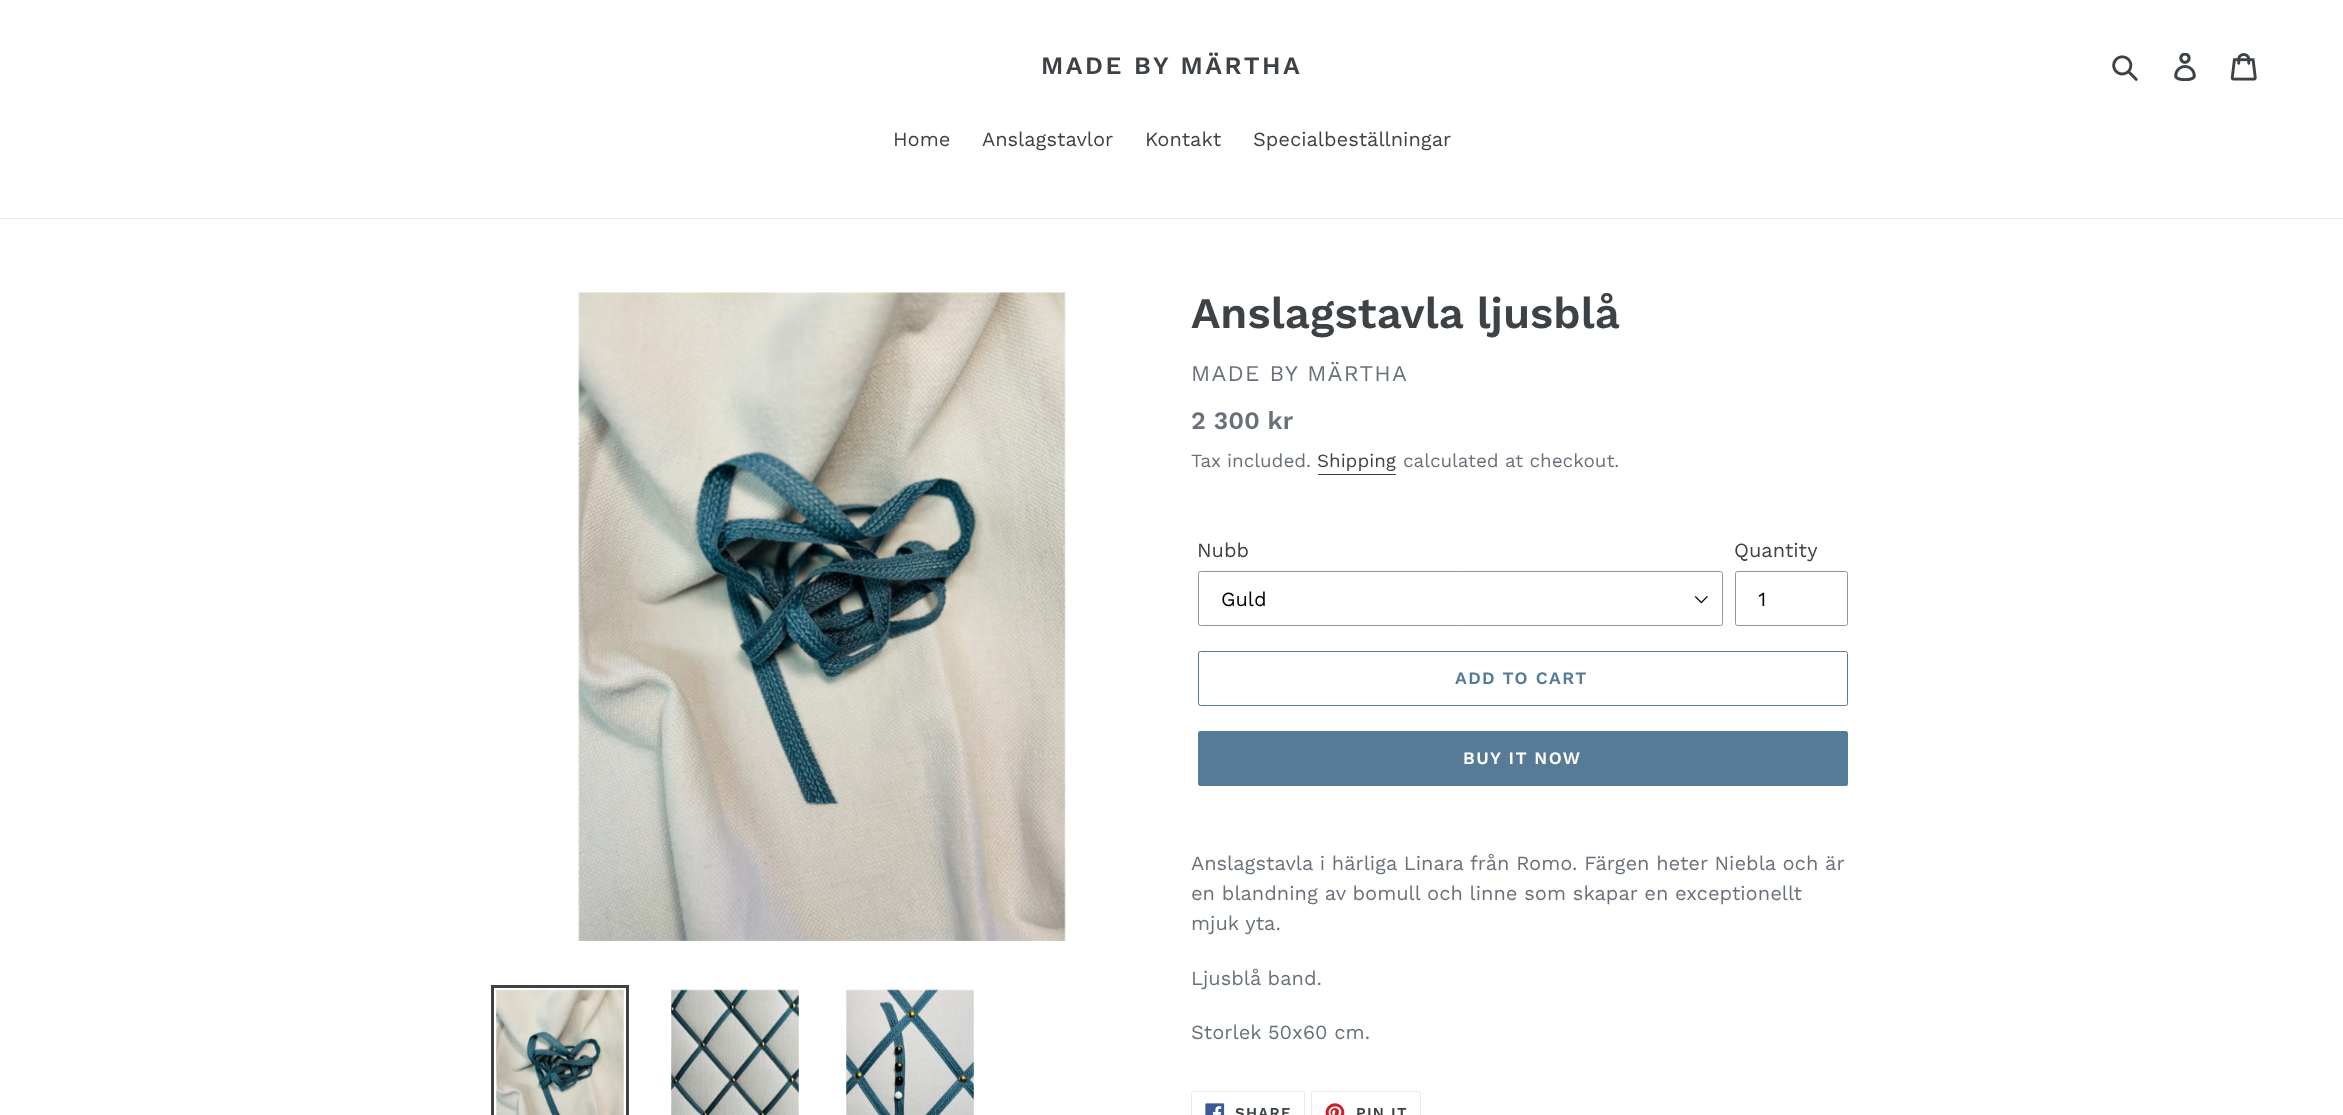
(async () => {
  const canvas = document.querySelector("canvas");
  canvas.width = 2343;
  canvas.height = 1115;
  const ctx = canvas.getContext("2d");
  ctx.miterLimit = 4;
  ctx.fontKerning = "normal";
  async function loadImage(src) {
    const img = new Image();
    img.src = src;
    await img.decode();
    return img;
  }

  ctx.fillStyle = "#ffffff";
  ctx.fillRect(0, 0, 2343, 1115);
  ctx.drawImage(await loadImage("img/1.png"), 2112, 55, 26, 26);
  ctx.drawImage(await loadImage("img/2.png"), 2174, 53, 22, 28);
  ctx.drawImage(await loadImage("img/3.png"), 2230, 53, 27, 28);
  ctx.fillStyle = "#e8e9eb";
  ctx.fillRect(0, 218, 2343, 1);
  ctx.drawImage(await loadImage("img/4.png"), 578, 292, 488, 649);
  ctx.strokeStyle = "#3d4246";
  ctx.lineWidth = 3;
  ctx.strokeRect(492.5, 986.5, 135, 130);
  ctx.drawImage(await loadImage("img/5.png"), 496, 989, 128, 126);
  ctx.drawImage(await loadImage("img/6.png"), 671, 989, 128, 126);
  ctx.drawImage(await loadImage("img/7.png"), 846, 989, 128, 126);
  ctx.fillStyle = "#3d4246";
  ctx.fillRect(1318, 474, 78, 1);
  ctx.drawImage(await loadImage("img/8.png"), 1694, 596, 14, 8);
  ctx.beginPath();
  ctx.roundRect(1198.5, 571.5, 524, 54, 2);
  ctx.strokeStyle = "#949494";
  ctx.lineWidth = 1;
  ctx.stroke();
  ctx.beginPath();
  ctx.roundRect(1735.5, 571.5, 112, 54, 2);
  ctx.stroke();
  ctx.beginPath();
  ctx.roundRect(1198.5, 651.5, 649, 54, 2);
  ctx.strokeStyle = "#557b97";
  ctx.stroke();
  ctx.fillStyle = "#557b97";
  ctx.beginPath();
  ctx.roundRect(1198, 731, 650, 55, 2.5);
  ctx.fill();
  ctx.beginPath();
  ctx.roundRect(1191.5, 1091.5, 113, 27, 2);
  ctx.strokeStyle = "#e8e9eb";
  ctx.stroke();
  ctx.drawImage(await loadImage("img/9.png"), 1205, 1103, 20, 12);
  ctx.beginPath();
  ctx.roundRect(1311.5, 1091.5, 109, 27, 2);
  ctx.stroke();
  ctx.drawImage(await loadImage("img/10.png"), 1325, 1103, 20, 12);
  ctx.letterSpacing = "2.5px";
  ctx.font = "600 25px Work Sans";
  ctx.fillStyle = "#3d4246";
  ctx.fillText("MADE BY MÄRTHA", 1041, 74);
  ctx.letterSpacing = "0px";
  ctx.font = "20px Work Sans";
  for (const [text, x, y] of [
    ["Home", 893, 146],
    ["Anslagstavlor", 982, 146],
    ["Kontakt", 1145, 146],
    ["Specialbeställningar", 1253, 146],
  ]) {
    ctx.fillText(text, x, y);
  }
  ctx.font = "600 43.75px Work Sans";
  ctx.fillText("Anslagstavla ljusblå", 1191, 328);
  ctx.letterSpacing = "1.25px";
  ctx.font = "22.5px Work Sans";
  ctx.fillStyle = "#69727b";
  ctx.fillText("MADE BY MÄRTHA", 1191, 381);
  ctx.letterSpacing = "0px";
  ctx.font = "600 25px Work Sans";
  ctx.fillText("2 300 kr", 1191, 429);
  ctx.font = "18.75px Work Sans";
  ctx.fillText("Tax included.", 1191, 467);
  ctx.fillStyle = "#3d4246";
  ctx.fillText("Shipping", 1317, 467);
  ctx.fillStyle = "#69727b";
  ctx.fillText("calculated at checkout.", 1403, 467);
  ctx.font = "20px Work Sans";
  ctx.fillStyle = "#3d4246";
  ctx.fillText("Nubb", 1197, 557);
  ctx.fillStyle = "#000000";
  ctx.fillText("Guld", 1221, 606);
  ctx.fillStyle = "#3d4246";
  ctx.fillText("Quantity", 1734, 557);
  ctx.fillStyle = "#000000";
  ctx.fillText("1", 1758, 606);
  ctx.letterSpacing = "1.4px";
  ctx.font = "600 17.5px Work Sans";
  ctx.fillStyle = "#557b97";
  ctx.fillText("ADD TO CART", 1455, 684);
  ctx.fillStyle = "#ffffff";
  ctx.fillText("BUY IT NOW", 1463, 764);
  ctx.letterSpacing = "0px";
  ctx.font = "20px Work Sans";
  ctx.fillStyle = "#69727b";
  for (const [text, x, y] of [
    ["Anslagstavla i härliga Linara från Romo. Färgen heter Niebla och är", 1191, 870],
    ["en blandning av bomull och linne som skapar en exceptionellt", 1191, 900],
    ["mjuk yta.", 1191, 930],
    ["Ljusblå band.", 1191, 985],
    ["Storlek 50x60 cm.", 1191, 1039],
  ]) {
    ctx.fillText(text, x, y);
  }
  ctx.letterSpacing = "1.25px";
  ctx.font = "600 15px Work Sans";
  ctx.fillStyle = "#3d4246";
  ctx.fillText("SHARE", 1235, 1118);
  ctx.fillText("PIN IT", 1356, 1118);
})();
